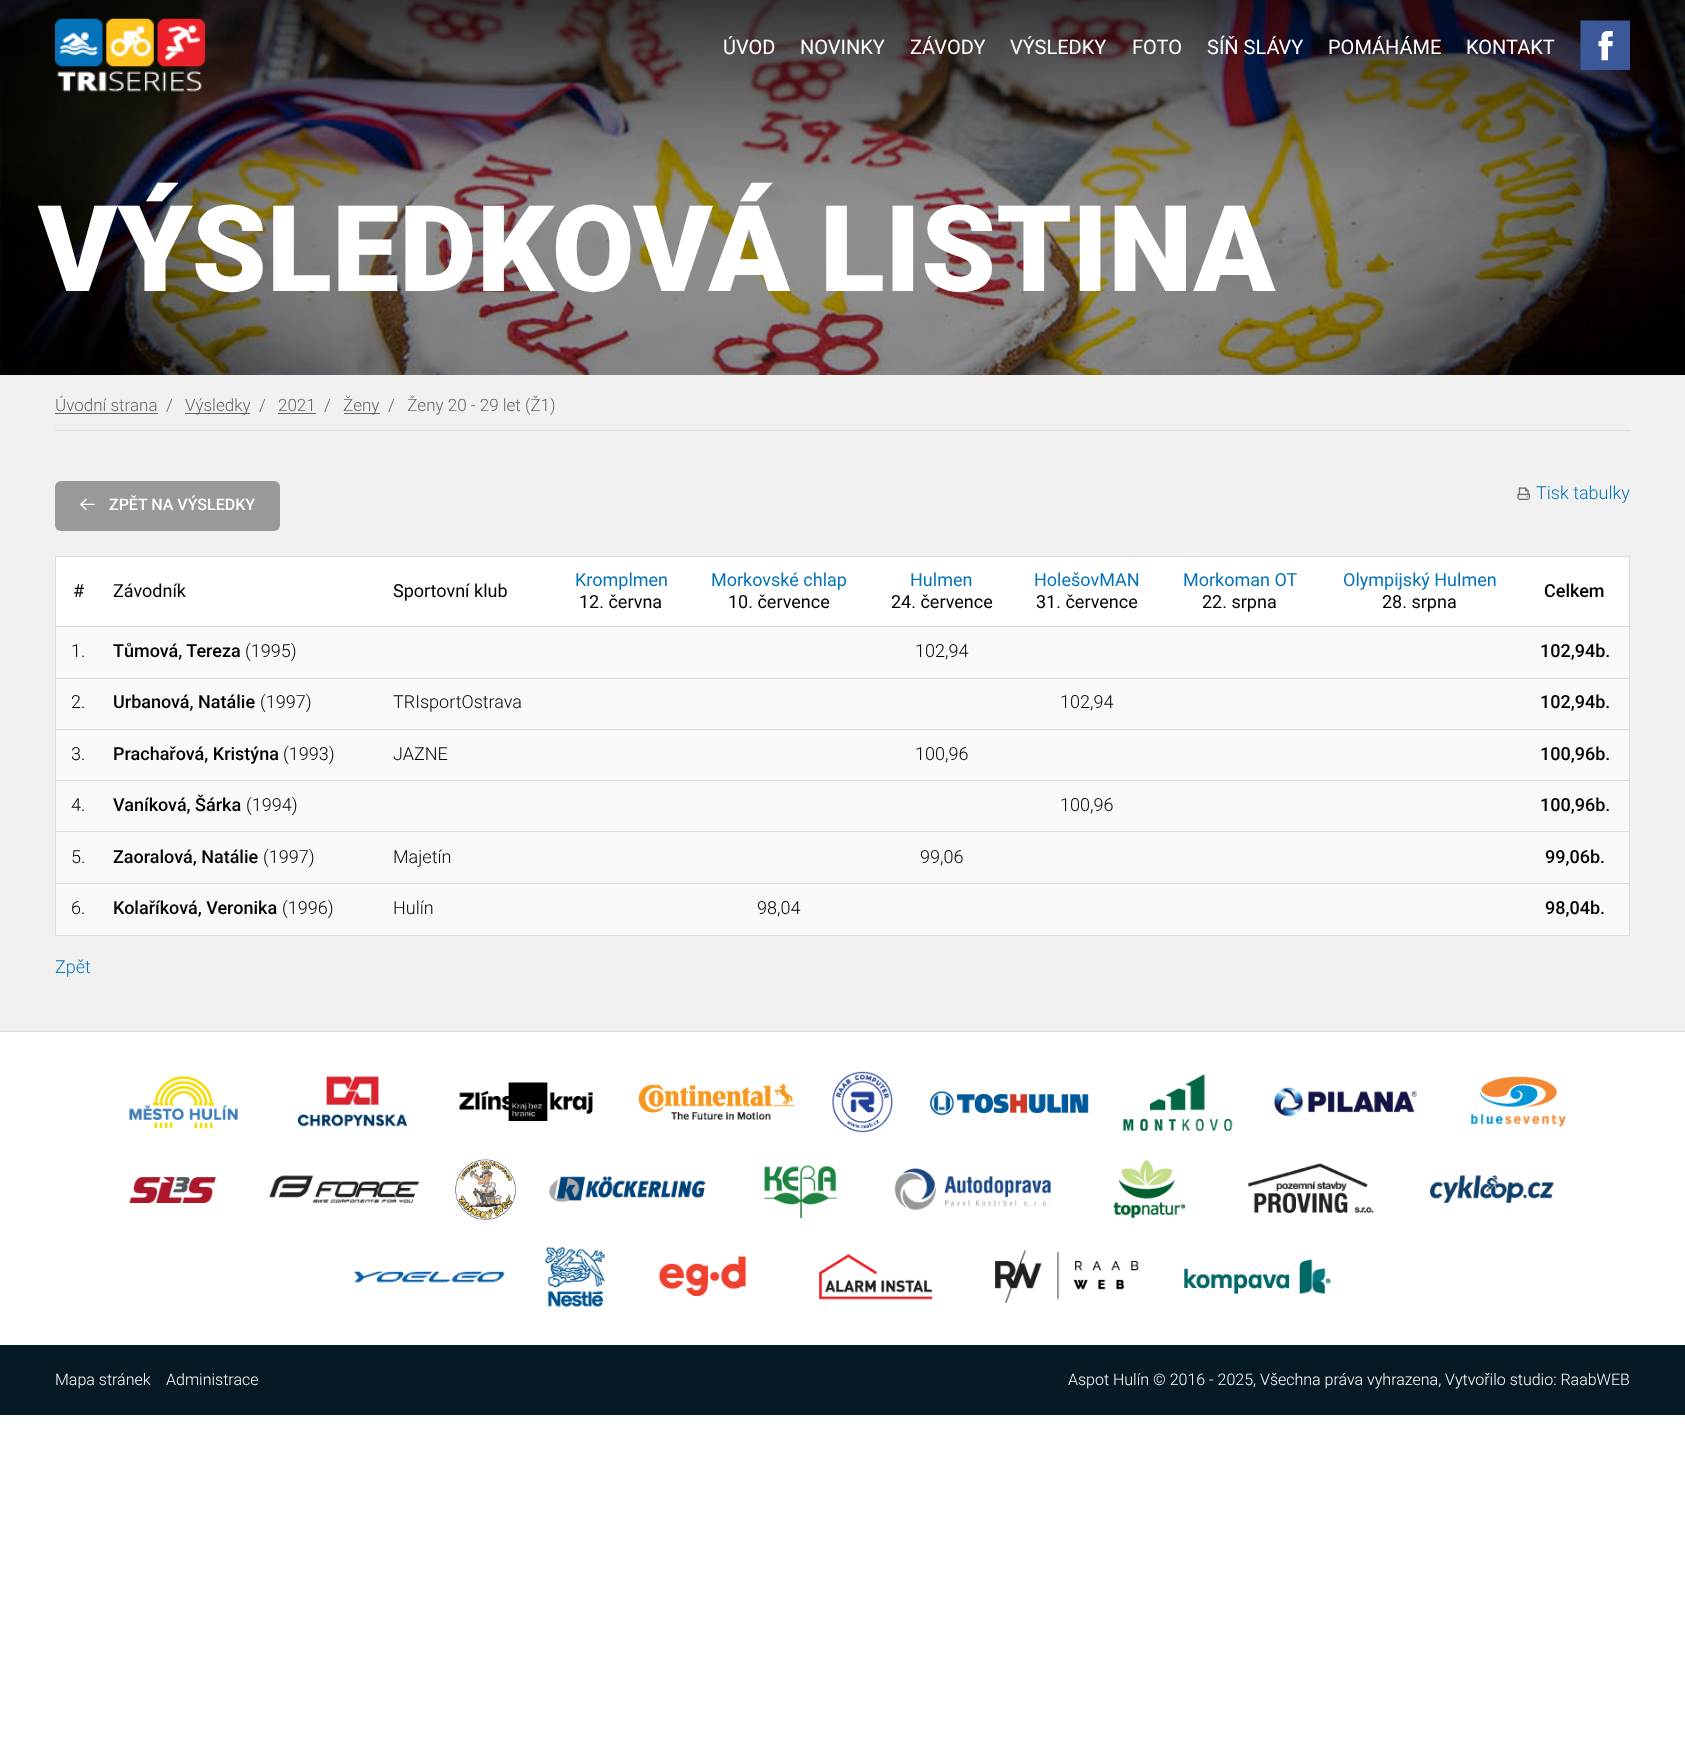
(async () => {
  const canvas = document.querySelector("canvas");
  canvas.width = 1685;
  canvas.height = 1758;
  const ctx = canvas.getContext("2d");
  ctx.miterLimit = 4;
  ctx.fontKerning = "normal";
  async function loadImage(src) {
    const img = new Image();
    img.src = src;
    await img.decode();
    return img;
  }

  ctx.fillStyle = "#ffffff";
  ctx.fillRect(0, 0, 1685, 1758);
  ctx.drawImage(await loadImage("img/3.png"), 0, 0, 1685, 375);
  ctx.drawImage(await loadImage("img/1.png"), 55, 18, 151, 74);
  ctx.drawImage(await loadImage("img/2.png"), 1580, 20, 50, 50);
  for (const [x, y, w, h, color] of [
    [0, 375, 1685, 656, "#f1f1f1"],
    [55, 430, 1575, 1, "#dddddd"],
    [55, 413, 103, 1, "#666666"],
    [185, 413, 65, 1, "#666666"],
    [278, 413, 38, 1, "#666666"],
    [344, 413, 36, 1, "#666666"],
  ]) {
    ctx.fillStyle = color;
    ctx.fillRect(x, y, w, h);
  }
  ctx.fillStyle = "#999999";
  ctx.beginPath();
  ctx.roundRect(55, 481, 225, 50, 6);
  ctx.fill();
  ctx.drawImage(await loadImage("img/4.png"), 80, 498, 15, 12);
  ctx.drawImage(await loadImage("img/5.png"), 1517, 487, 13, 13);
  for (const [x, y, w, h, color] of [
    [56, 557, 1573, 378, "#f9f9f9"],
    [55, 556, 1575, 1, "#dddddd"],
    [1629, 556, 1, 380, "#dddddd"],
    [55, 935, 1575, 1, "#dddddd"],
    [55, 556, 1, 380, "#dddddd"],
    [55, 626, 1575, 1, "#dddddd"],
    [56, 558, 1573, 68, "#ffffff"],
    [55, 678, 1575, 1, "#dddddd"],
    [55, 729, 1575, 1, "#dddddd"],
    [55, 780, 1575, 1, "#dddddd"],
    [55, 831, 1575, 1, "#dddddd"],
    [55, 883, 1575, 1, "#dddddd"],
    [0, 1031, 1685, 1, "#dddddd"],
  ]) {
    ctx.fillStyle = color;
    ctx.fillRect(x, y, w, h);
  }
  ctx.drawImage(await loadImage("img/6.png"), 129, 1076, 109, 53);
  ctx.drawImage(await loadImage("img/7.png"), 298, 1076, 109, 51);
  ctx.drawImage(await loadImage("img/8.png"), 459, 1082, 134, 39);
  ctx.drawImage(await loadImage("img/9.png"), 638, 1083, 158, 37);
  ctx.drawImage(await loadImage("img/10.png"), 832, 1071, 61, 62);
  ctx.drawImage(await loadImage("img/11.png"), 930, 1091, 159, 25);
  ctx.drawImage(await loadImage("img/12.png"), 1123, 1074, 110, 57);
  ctx.drawImage(await loadImage("img/13.png"), 1274, 1087, 143, 30);
  ctx.drawImage(await loadImage("img/14.png"), 1471, 1076, 95, 51);
  ctx.drawImage(await loadImage("img/15.png"), 129, 1177, 87, 26);
  ctx.drawImage(await loadImage("img/16.png"), 269, 1175, 151, 28);
  ctx.drawImage(await loadImage("img/17.png"), 455, 1159, 61, 61);
  ctx.drawImage(await loadImage("img/18.png"), 549, 1176, 157, 27);
  ctx.drawImage(await loadImage("img/19.png"), 764, 1165, 73, 54);
  ctx.drawImage(await loadImage("img/20.png"), 894, 1168, 157, 43);
  ctx.drawImage(await loadImage("img/21.png"), 1113, 1159, 73, 60);
  ctx.drawImage(await loadImage("img/22.png"), 1247, 1163, 127, 50);
  ctx.drawImage(await loadImage("img/23.png"), 1430, 1175, 124, 28);
  ctx.drawImage(await loadImage("img/24.png"), 353, 1271, 152, 12);
  ctx.drawImage(await loadImage("img/25.png"), 545, 1246, 60, 61);
  ctx.drawImage(await loadImage("img/26.png"), 658, 1256, 89, 40);
  ctx.drawImage(await loadImage("img/27.png"), 819, 1254, 114, 46);
  ctx.drawImage(await loadImage("img/28.png"), 995, 1250, 144, 53);
  ctx.drawImage(await loadImage("img/29.png"), 1184, 1259, 147, 36);
  ctx.fillStyle = "#051a24";
  ctx.fillRect(0, 1345, 1685, 70);
  ctx.font = "20px Roboto";
  ctx.fillStyle = "#ffffff";
  for (const [text, x, y] of [
    ["ÚVOD", 723, 54],
    ["NOVINKY", 800, 54],
    ["ZÁVODY", 910, 54],
    ["VÝSLEDKY", 1010, 54],
    ["FOTO", 1132, 54],
    ["SÍŇ SLÁVY", 1207, 54],
    ["POMÁHÁME", 1328, 54],
    ["KONTAKT", 1466, 54],
  ]) {
    ctx.fillText(text, x, y);
  }
  ctx.font = "900 120px Roboto";
  ctx.fillText("VÝSLEDKOVÁ LISTINA", 38, 291);
  ctx.font = "300 17px Roboto";
  ctx.fillStyle = "#666666";
  for (const [text, x, y] of [
    ["Úvodní strana", 55, 411],
    ["/", 166, 411],
    ["Výsledky", 185, 411],
    ["/", 259, 411],
    ["2021", 278, 411],
    ["/", 324, 411],
    ["Ženy", 343, 411],
    ["/   Ženy 20 - 29 let (Ž1)", 388, 411],
  ]) {
    ctx.fillText(text, x, y);
  }
  ctx.font = "500 16px Roboto";
  ctx.fillStyle = "#ffffff";
  ctx.fillText("ZPĚT NA VÝSLEDKY", 109, 510);
  ctx.font = "300 18px Roboto";
  ctx.fillStyle = "#0573b9";
  ctx.fillText("Tisk tabulky", 1536, 499);
  ctx.font = "18px Roboto";
  ctx.fillStyle = "#000000";
  for (const [text, x, y] of [
    ["#", 73, 597],
    ["Závodník", 113, 597],
    ["Sportovní klub", 393, 597],
  ]) {
    ctx.fillText(text, x, y);
  }
  ctx.fillStyle = "#0573b9";
  ctx.fillText("Kromplmen", 575, 586);
  ctx.fillStyle = "#000000";
  ctx.fillText("12. června", 579, 608);
  ctx.fillStyle = "#0573b9";
  ctx.fillText("Morkovské chlap", 711, 586);
  ctx.fillStyle = "#000000";
  ctx.fillText("10. července", 728, 608);
  ctx.fillStyle = "#0573b9";
  ctx.fillText("Hulmen", 910, 586);
  ctx.fillStyle = "#000000";
  ctx.fillText("24. července", 891, 608);
  ctx.fillStyle = "#0573b9";
  ctx.fillText("HolešovMAN", 1034, 586);
  ctx.fillStyle = "#000000";
  ctx.fillText("31. července", 1036, 608);
  ctx.fillStyle = "#0573b9";
  ctx.fillText("Morkoman OT", 1183, 586);
  ctx.fillStyle = "#000000";
  ctx.fillText("22. srpna", 1202, 608);
  ctx.fillStyle = "#0573b9";
  ctx.fillText("Olympijský Hulmen", 1343, 586);
  ctx.fillStyle = "#000000";
  ctx.fillText("28. srpna", 1382, 608);
  ctx.font = "500 18px Roboto";
  ctx.fillText("Celkem", 1544, 597);
  ctx.font = "300 18px Roboto";
  ctx.fillText("1.", 71, 657);
  ctx.font = "500 18px Roboto";
  ctx.fillText("Tůmová, Tereza", 113, 657);
  ctx.font = "300 18px Roboto";
  ctx.fillText("(1995)", 245, 657);
  ctx.fillText("102,94", 915, 657);
  ctx.font = "500 18px Roboto";
  ctx.fillText("102,94b.", 1540, 657);
  ctx.font = "300 18px Roboto";
  ctx.fillText("2.", 71, 708);
  ctx.font = "500 18px Roboto";
  ctx.fillText("Urbanová, Natálie", 113, 708);
  ctx.font = "300 18px Roboto";
  for (const [text, x, y] of [
    ["(1997)", 260, 708],
    ["TRIsportOstrava", 393, 708],
    ["102,94", 1060, 708],
  ]) {
    ctx.fillText(text, x, y);
  }
  ctx.font = "500 18px Roboto";
  ctx.fillText("102,94b.", 1540, 708);
  ctx.font = "300 18px Roboto";
  ctx.fillText("3.", 71, 760);
  ctx.font = "500 18px Roboto";
  ctx.fillText("Prachařová, Kristýna", 113, 760);
  ctx.font = "300 18px Roboto";
  for (const [text, x, y] of [
    ["(1993)", 283, 760],
    ["JAZNE", 393, 760],
    ["100,96", 915, 760],
  ]) {
    ctx.fillText(text, x, y);
  }
  ctx.font = "500 18px Roboto";
  ctx.fillText("100,96b.", 1540, 760);
  ctx.font = "300 18px Roboto";
  ctx.fillText("4.", 71, 811);
  ctx.font = "500 18px Roboto";
  ctx.fillText("Vaníková, Šárka", 113, 811);
  ctx.font = "300 18px Roboto";
  ctx.fillText("(1994)", 246, 811);
  ctx.fillText("100,96", 1060, 811);
  ctx.font = "500 18px Roboto";
  ctx.fillText("100,96b.", 1540, 811);
  ctx.font = "300 18px Roboto";
  ctx.fillText("5.", 71, 863);
  ctx.font = "500 18px Roboto";
  ctx.fillText("Zaoralová, Natálie", 113, 863);
  ctx.font = "300 18px Roboto";
  for (const [text, x, y] of [
    ["(1997)", 263, 863],
    ["Majetín", 393, 863],
    ["99,06", 920, 863],
  ]) {
    ctx.fillText(text, x, y);
  }
  ctx.font = "500 18px Roboto";
  ctx.fillText("99,06b.", 1545, 863);
  ctx.font = "300 18px Roboto";
  ctx.fillText("6.", 71, 914);
  ctx.font = "500 18px Roboto";
  ctx.fillText("Kolaříková, Veronika", 113, 914);
  ctx.font = "300 18px Roboto";
  for (const [text, x, y] of [
    ["(1996)", 282, 914],
    ["Hulín", 393, 914],
    ["98,04", 757, 914],
  ]) {
    ctx.fillText(text, x, y);
  }
  ctx.font = "500 18px Roboto";
  ctx.fillText("98,04b.", 1545, 914);
  ctx.font = "300 18px Roboto";
  ctx.fillStyle = "#0573b9";
  ctx.fillText("Zpět", 55, 973);
  ctx.font = "300 16px Roboto";
  ctx.fillStyle = "#ffffff";
  for (const [text, x, y] of [
    ["Mapa stránek", 55, 1385],
    ["Administrace", 166, 1385],
    ["Aspot Hulín © 2016 - 2025, Všechna práva vyhrazena, Vytvořilo studio: RaabWEB", 1068, 1385],
  ]) {
    ctx.fillText(text, x, y);
  }
})();
